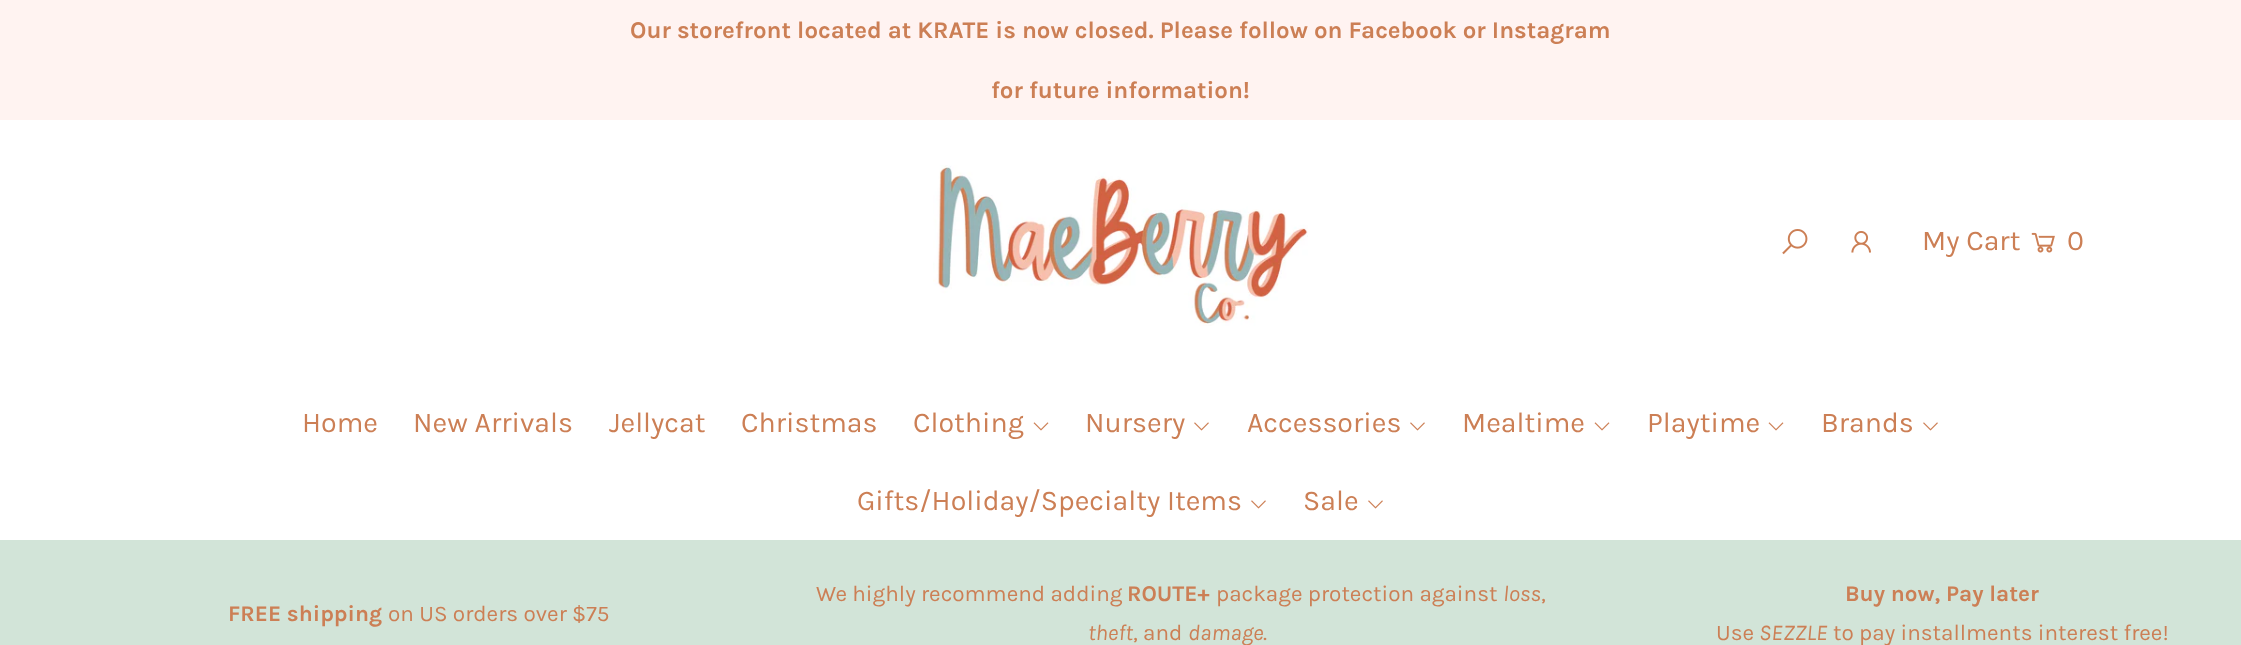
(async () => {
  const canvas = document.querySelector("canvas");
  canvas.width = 2241;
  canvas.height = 645;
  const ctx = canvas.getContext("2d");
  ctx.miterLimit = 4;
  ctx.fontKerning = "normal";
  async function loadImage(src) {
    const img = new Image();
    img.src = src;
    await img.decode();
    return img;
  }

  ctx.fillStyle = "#ffffff";
  ctx.fillRect(0, 0, 2241, 645);
  ctx.fillStyle = "#fff3f1";
  ctx.fillRect(0, 0, 2241, 120);
  ctx.drawImage(await loadImage("img/1.png"), 933, 165, 375, 161);
  ctx.drawImage(await loadImage("img/2.png"), 1782, 229, 26, 26);
  ctx.drawImage(await loadImage("img/3.png"), 1851, 231, 20, 22);
  ctx.drawImage(await loadImage("img/4.png"), 2031, 232, 24, 21);
  ctx.drawImage(await loadImage("img/5.png"), 1033, 422, 16, 9);
  ctx.drawImage(await loadImage("img/6.png"), 1194, 422, 15, 9);
  ctx.drawImage(await loadImage("img/6.png"), 1410, 422, 15, 9);
  ctx.drawImage(await loadImage("img/5.png"), 1594, 422, 16, 9);
  ctx.drawImage(await loadImage("img/5.png"), 1768, 422, 16, 9);
  ctx.drawImage(await loadImage("img/6.png"), 1923, 422, 15, 9);
  ctx.drawImage(await loadImage("img/6.png"), 1251, 500, 15, 9);
  ctx.drawImage(await loadImage("img/6.png"), 1368, 500, 15, 9);
  ctx.fillStyle = "#d2e4d8";
  ctx.fillRect(0, 540, 2241, 105);
  ctx.font = "bold 24px Karla";
  ctx.fillStyle = "#cc7f55";
  ctx.fillText("Our storefront located at KRATE is now closed. Please follow on Facebook or Instagram", 630, 38);
  ctx.fillText("for future information!", 991, 98);
  ctx.font = "28.5px Karla";
  for (const [text, x, y] of [
    ["My Cart", 1922, 250],
    ["0", 2067, 250],
    ["Home", 302, 432],
    ["New Arrivals", 413, 432],
    ["Jellycat", 609, 432],
    ["Christmas", 741, 432],
    ["Clothing", 913, 432],
    ["Nursery", 1085, 432],
    ["Accessories", 1247, 432],
    ["Mealtime", 1462, 432],
    ["Playtime", 1647, 432],
    ["Brands", 1821, 432],
    ["Gifts/Holiday/Specialty Items", 857, 510],
    ["Sale", 1303, 510],
  ]) {
    ctx.fillText(text, x, y);
  }
  ctx.font = "bold 22.5px Karla";
  ctx.fillText("FREE shipping", 228, 621);
  ctx.font = "22.5px Karla";
  ctx.fillText("on US orders over $75", 388, 621);
  ctx.fillText("We highly recommend adding", 816, 601);
  ctx.font = "bold 22.5px Karla";
  ctx.fillText("ROUTE+", 1127, 601);
  ctx.font = "22.5px Karla";
  ctx.fillText("package protection against", 1216, 601);
  ctx.font = "italic 22.5px Karla";
  ctx.fillText("loss", 1503, 601);
  ctx.font = "22.5px Karla";
  ctx.fillText(",", 1541, 601);
  ctx.font = "italic 22.5px Karla";
  ctx.fillText("theft", 1088, 640);
  ctx.font = "22.5px Karla";
  ctx.fillText(", and", 1133, 640);
  ctx.font = "italic 22.5px Karla";
  ctx.fillText("damage", 1188, 640);
  ctx.font = "22.5px Karla";
  ctx.fillText(".", 1263, 640);
  ctx.font = "bold 22.5px Karla";
  ctx.fillText("Buy now, Pay later", 1845, 601);
  ctx.font = "22.5px Karla";
  ctx.fillText("Use", 1716, 640);
  ctx.font = "italic 22.5px Karla";
  ctx.fillText("SEZZLE", 1759, 640);
  ctx.font = "22.5px Karla";
  ctx.fillText("to pay installments interest free!", 1833, 640);
})();
